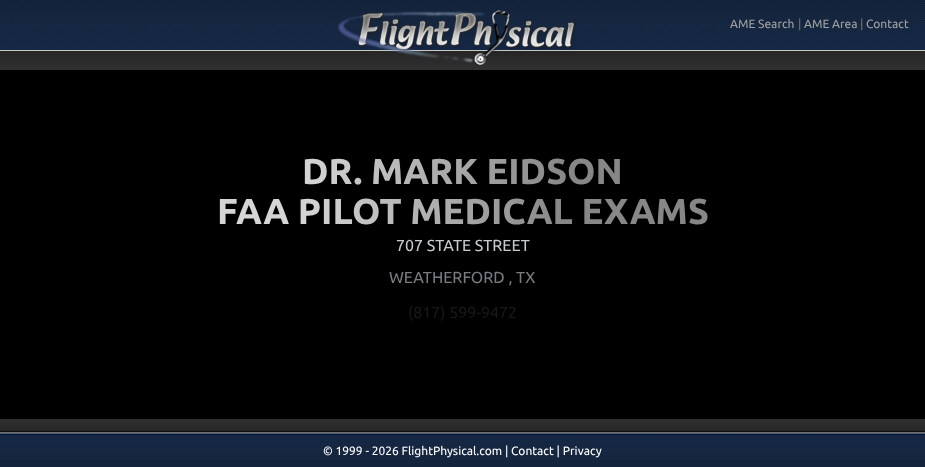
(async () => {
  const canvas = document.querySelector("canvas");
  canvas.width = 925;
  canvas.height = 467;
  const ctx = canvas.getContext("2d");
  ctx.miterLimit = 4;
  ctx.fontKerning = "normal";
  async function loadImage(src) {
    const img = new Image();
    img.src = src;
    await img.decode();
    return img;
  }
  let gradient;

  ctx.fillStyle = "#000000";
  ctx.fillRect(0, 0, 925, 467);
  ctx.drawImage(await loadImage("img/1.png"), 0, 0, 925, 70);
  ctx.drawImage(await loadImage("img/2.png"), 0, 419, 925, 48);
  ctx.font = "12px Ubuntu";
  ctx.fillStyle = "#a1a1a1";
  ctx.fillText("AME Search", 730, 28);
  ctx.fillStyle = "#737373";
  ctx.fillText("|", 798, 28);
  ctx.fillStyle = "#a1a1a1";
  ctx.fillText("AME Area", 804, 28);
  ctx.fillStyle = "#737373";
  ctx.fillText("|", 860, 28);
  ctx.fillStyle = "#a1a1a1";
  ctx.fillText("Contact", 866, 28);
  ctx.font = "bold 36px Ubuntu";
  gradient = ctx.createLinearGradient(217, 191, 708, 191);
  gradient.addColorStop(0.18, "#d5d5d5");
  gradient.addColorStop(0.71, "#878787");
  ctx.fillStyle = gradient;
  ctx.fillText("DR. MARK EIDSON", 302, 184);
  ctx.fillText("FAA PILOT MEDICAL EXAMS", 217, 224);
  ctx.font = "16px Ubuntu";
  ctx.fillStyle = "#c5cad1";
  ctx.fillText("707 STATE STREET", 396, 251);
  ctx.fillStyle = "#787b80";
  ctx.fillText("WEATHERFORD , TX", 389, 283);
  ctx.fillStyle = "#171819";
  ctx.fillText("(817) 599-9472", 408, 318);
  ctx.font = "12px Ubuntu";
  ctx.fillStyle = "#ffffff";
  ctx.fillText("© 1999 - 2026 FlightPhysical.com | Contact | Privacy", 323, 455);
})();
